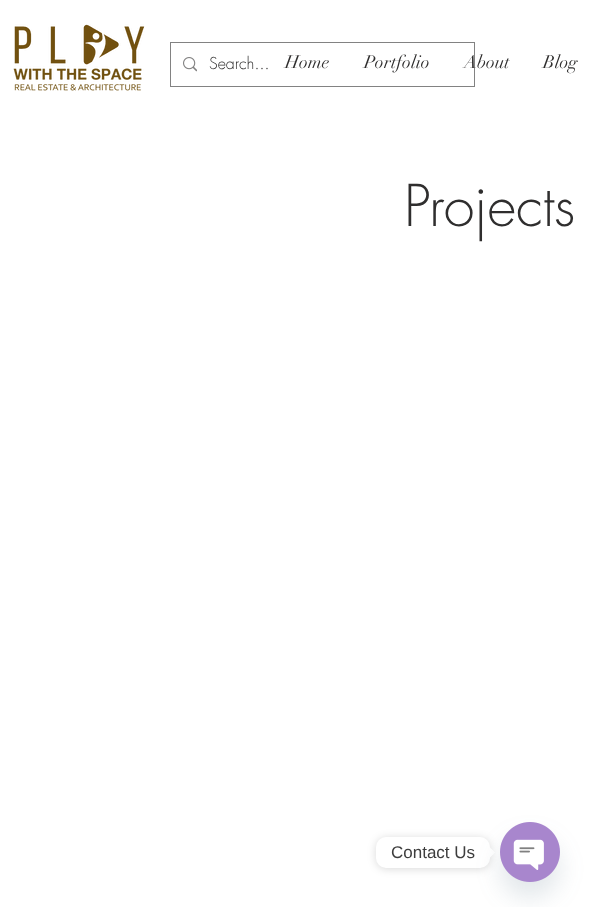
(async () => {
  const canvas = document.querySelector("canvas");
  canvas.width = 589;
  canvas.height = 907;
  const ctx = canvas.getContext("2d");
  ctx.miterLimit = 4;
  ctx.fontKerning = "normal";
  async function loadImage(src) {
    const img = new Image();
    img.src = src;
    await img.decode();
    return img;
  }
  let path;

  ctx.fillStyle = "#ffffff";
  ctx.fillRect(0, 0, 589, 907);
  ctx.drawImage(await loadImage("img/1.png"), 13, 24, 132, 67);
  ctx.strokeStyle = "#828282";
  ctx.strokeRect(170.5, 42.5, 304, 44);
  ctx.drawImage(await loadImage("img/2.png"), 183, 57, 14, 15);
  ctx.fillStyle = "rgba(0, 0, 0, 0.15)";
  ctx.filter = "blur(4px)";
  ctx.beginPath();
  ctx.roundRect(376, 838, 114, 31, 10);
  ctx.fill();
  ctx.filter = "none";
  ctx.fillStyle = "#ffffff";
  ctx.beginPath();
  ctx.roundRect(376, 837, 114, 31, 10);
  ctx.fill();
  path = new Path2D("M490 857.5V847.5L495 852.5Z");
  ctx.fill(path);
  ctx.fillStyle = "rgba(73, 104, 126, 0.16)";
  ctx.filter = "blur(12px)";
  ctx.beginPath();
  ctx.roundRect(500, 838, 60, 60, 30);
  ctx.fill();
  ctx.filter = "none";
  ctx.drawImage(await loadImage("img/3.png"), 500, 822, 60, 60);
  ctx.font = "300 16px futura";
  ctx.fillStyle = "#2f2e2e";
  ctx.fillText("Search...", 209, 69);
  ctx.font = "18px didot";
  for (const [text, x, y] of [
    ["Home", 285, 68],
    ["Portfolio", 364, 68],
    ["About", 464, 68],
    ["Blog", 543, 68],
  ]) {
    ctx.fillText(text, x, y);
  }
  ctx.font = "300 56px futura";
  ctx.fillText("Projects", 404, 226);
  ctx.font = "17px Liberation Sans";
  ctx.fillStyle = "#3d3d3d";
  ctx.fillText("Contact Us", 391, 858);
})();
